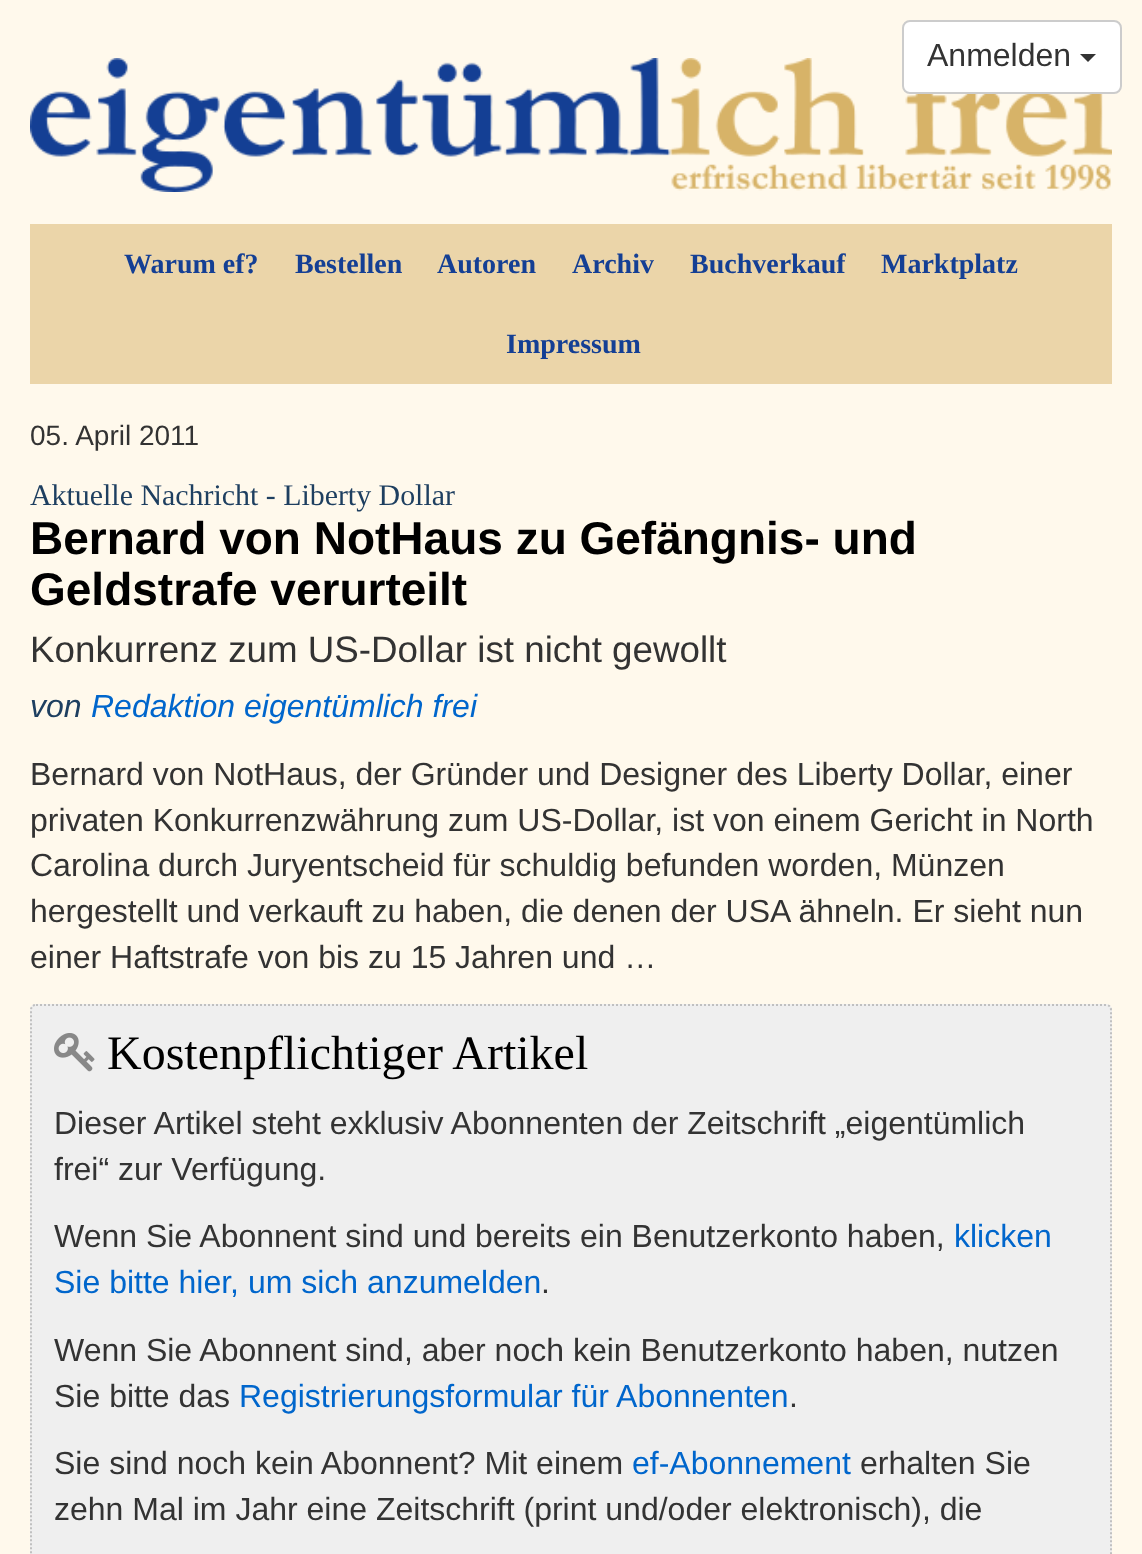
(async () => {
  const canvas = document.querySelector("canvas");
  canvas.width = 1142;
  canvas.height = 1554;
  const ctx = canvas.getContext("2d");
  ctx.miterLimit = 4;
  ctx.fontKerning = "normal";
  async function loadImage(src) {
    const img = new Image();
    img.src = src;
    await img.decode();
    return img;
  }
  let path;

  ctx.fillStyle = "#fff9ec";
  ctx.fillRect(0, 0, 1142, 1554);
  ctx.drawImage(await loadImage("img/1.png"), 30, 58, 1082, 134);
  ctx.fillStyle = "#ffffff";
  ctx.beginPath();
  ctx.roundRect(903, 21, 218, 72, 7);
  ctx.fill();
  ctx.strokeStyle = "#cccccc";
  ctx.lineWidth = 2;
  ctx.stroke();
  ctx.fillStyle = "#333333";
  path = new Path2D("M1080 54H1096L1088 62Z");
  ctx.fill(path);
  ctx.fillStyle = "#ebd5a9";
  ctx.fillRect(30, 224, 1082, 160);
  ctx.fillStyle = "#efefef";
  ctx.beginPath();
  ctx.roundRect(30, 1004, 1082, 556, 6);
  ctx.fill();
  path = new Path2D("M36 1005H1106C1109 1005 1111 1007 1111 1010V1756C1111 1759 1109 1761 1106 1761H36C33 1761 31 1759 31 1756V1010C31 1007 33 1005 36 1005Z");
  ctx.strokeStyle = "#c0c0c0";
  ctx.setLineDash([2, 2]);
  ctx.stroke(path);
  ctx.drawImage(await loadImage("img/2.png"), 54, 1033, 41, 39);
  ctx.font = "32px Liberation Sans";
  ctx.fillStyle = "#333333";
  ctx.fillText("Anmelden", 927, 66);
  ctx.font = "bold 28px Liberation Serif";
  ctx.fillStyle = "#143f94";
  for (const [text, x, y] of [
    ["Warum ef?", 124, 273],
    ["Bestellen", 295, 273],
    ["Autoren", 437, 273],
    ["Archiv", 572, 273],
    ["Buchverkauf", 690, 273],
    ["Marktplatz", 881, 273],
    ["Impressum", 506, 353],
  ]) {
    ctx.fillText(text, x, y);
  }
  ctx.font = "28px Liberation Sans";
  ctx.fillStyle = "#333333";
  ctx.fillText("05. April 2011", 30, 445);
  ctx.font = "29.9px Liberation Serif";
  ctx.fillStyle = "#1e3f60";
  ctx.fillText("Aktuelle Nachricht - Liberty Dollar", 30, 505);
  ctx.font = "bold 46px Liberation Sans";
  ctx.fillStyle = "#000000";
  ctx.fillText("Bernard von NotHaus zu Gefängnis- und", 30, 554);
  ctx.fillText("Geldstrafe verurteilt", 30, 605);
  ctx.font = "36.75px Liberation Sans";
  ctx.fillStyle = "#333333";
  ctx.fillText("Konkurrenz zum US-Dollar ist nicht gewollt", 30, 662);
  ctx.font = "italic 32px Liberation Sans";
  ctx.fillStyle = "#1e3f60";
  ctx.fillText("von", 30, 717);
  ctx.fillStyle = "#0066cc";
  ctx.fillText("Redaktion eigentümlich frei", 91, 717);
  ctx.font = "32px Liberation Sans";
  ctx.fillStyle = "#333333";
  for (const [text, x, y] of [
    ["Bernard von NotHaus, der Gründer und Designer des Liberty Dollar, einer", 30, 785],
    ["privaten Konkurrenzwährung zum US-Dollar, ist von einem Gericht in North", 30, 831],
    ["Carolina durch Juryentscheid für schuldig befunden worden, Münzen", 30, 876],
    ["hergestellt und verkauft zu haben, die denen der USA ähneln. Er sieht nun", 30, 922],
    ["einer Haftstrafe von bis zu 15 Jahren und …", 30, 968],
  ]) {
    ctx.fillText(text, x, y);
  }
  ctx.font = "48px Liberation Serif";
  ctx.fillStyle = "#000000";
  ctx.fillText("Kostenpflichtiger Artikel", 107, 1069);
  ctx.font = "32px Liberation Sans";
  ctx.fillStyle = "#333333";
  for (const [text, x, y] of [
    ["Dieser Artikel steht exklusiv Abonnenten der Zeitschrift „eigentümlich", 54, 1134],
    ["frei“ zur Verfügung.", 54, 1180],
    ["Wenn Sie Abonnent sind und bereits ein Benutzerkonto haben,", 54, 1247],
  ]) {
    ctx.fillText(text, x, y);
  }
  ctx.fillStyle = "#0066cc";
  ctx.fillText("klicken", 954, 1247);
  ctx.fillText("Sie bitte hier, um sich anzumelden", 54, 1293);
  ctx.fillStyle = "#333333";
  for (const [text, x, y] of [
    [".", 541, 1293],
    ["Wenn Sie Abonnent sind, aber noch kein Benutzerkonto haben, nutzen", 54, 1361],
    ["Sie bitte das", 54, 1407],
  ]) {
    ctx.fillText(text, x, y);
  }
  ctx.fillStyle = "#0066cc";
  ctx.fillText("Registrierungsformular für Abonnenten", 239, 1407);
  ctx.fillStyle = "#333333";
  ctx.fillText(".", 789, 1407);
  ctx.fillText("Sie sind noch kein Abonnent? Mit einem", 54, 1474);
  ctx.fillStyle = "#0066cc";
  ctx.fillText("ef-Abonnement", 632, 1474);
  ctx.fillStyle = "#333333";
  ctx.fillText("erhalten Sie", 860, 1474);
  ctx.fillText("zehn Mal im Jahr eine Zeitschrift (print und/oder elektronisch), die", 54, 1520);
})();
